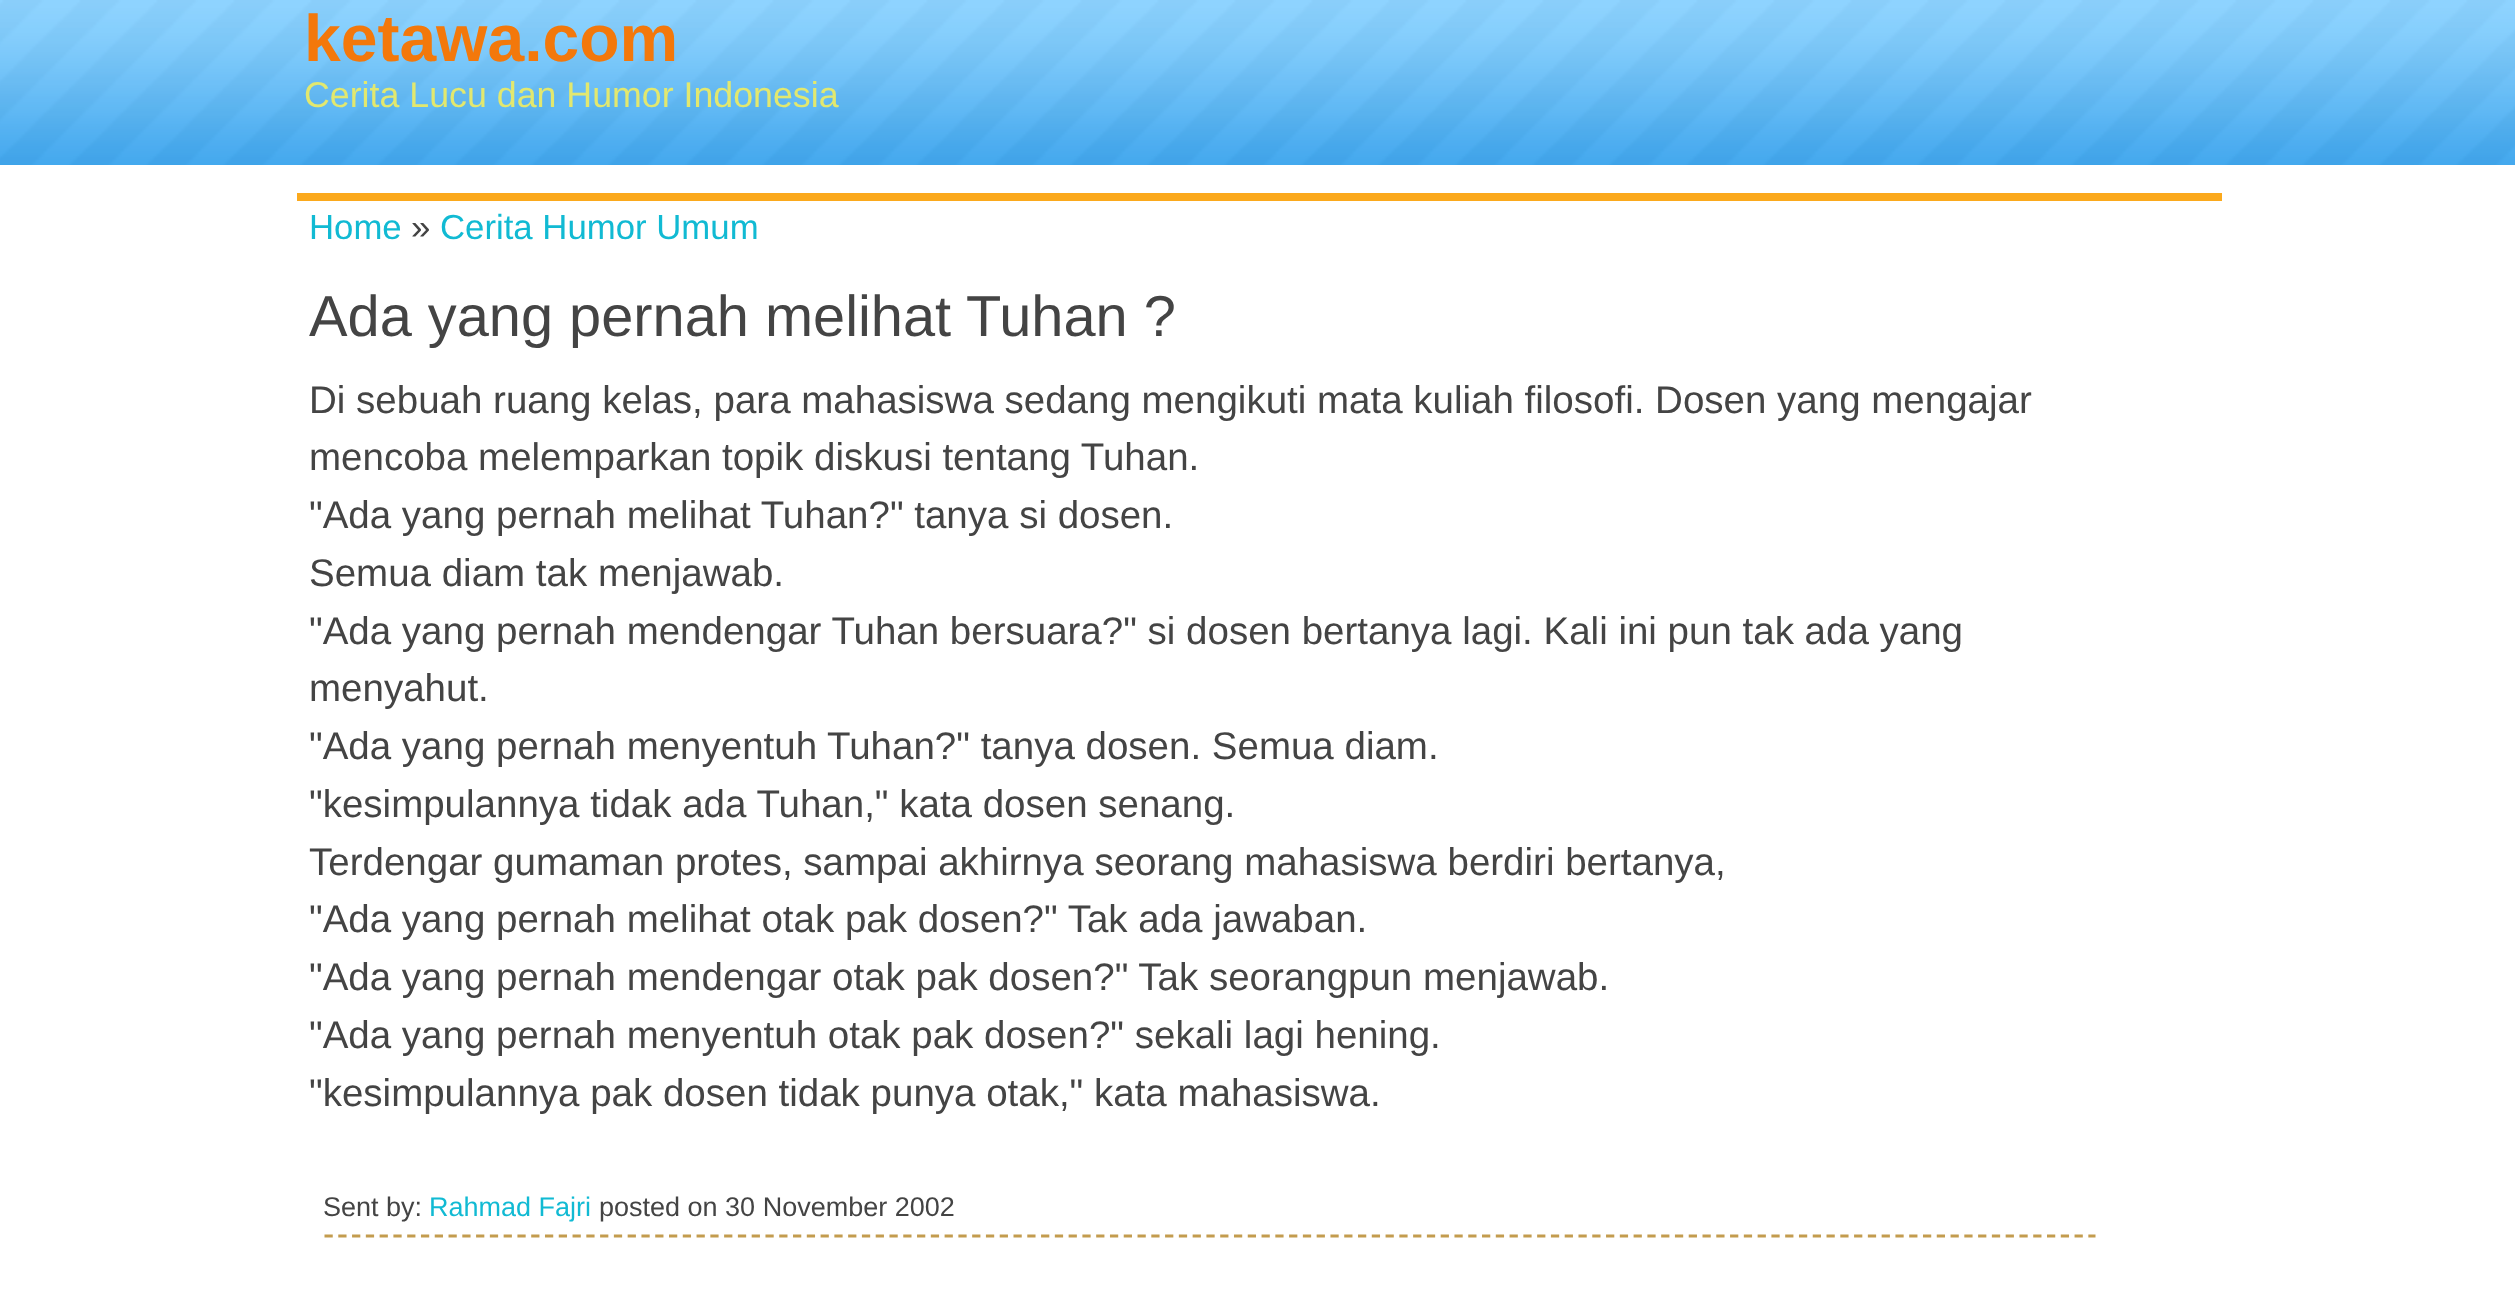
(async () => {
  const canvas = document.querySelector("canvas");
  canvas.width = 2515;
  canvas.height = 1295;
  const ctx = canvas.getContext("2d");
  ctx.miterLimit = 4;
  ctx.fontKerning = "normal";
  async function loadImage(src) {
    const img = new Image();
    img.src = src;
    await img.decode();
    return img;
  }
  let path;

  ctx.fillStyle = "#ffffff";
  ctx.fillRect(0, 0, 2515, 1295);
  ctx.drawImage(await loadImage("img/1.png"), 0, 0, 2515, 165);
  ctx.fillStyle = "#fba91c";
  ctx.fillRect(297, 193, 1925, 8);
  path = new Path2D("M324.5 1236H2095.5");
  ctx.strokeStyle = "#c39c4e";
  ctx.lineWidth = 2.8;
  ctx.setLineDash([8.25, 5.53]);
  ctx.stroke(path);
  ctx.font = "bold 66px Liberation Sans";
  ctx.fillStyle = "#f3780b";
  ctx.fillText("ketawa.com", 304, 61);
  ctx.font = "35.75px Liberation Sans";
  ctx.fillStyle = "#e2e86f";
  ctx.fillText("Cerita Lucu dan Humor Indonesia", 304, 107);
  ctx.font = "34.75px Liberation Sans";
  ctx.fillStyle = "#11bad3";
  ctx.fillText("Home", 309, 239);
  ctx.fillStyle = "#444444";
  ctx.fillText("»", 411, 239);
  ctx.fillStyle = "#11bad3";
  ctx.fillText("Cerita Humor Umum", 440, 239);
  ctx.font = "57.75px Liberation Sans";
  ctx.fillStyle = "#444444";
  ctx.fillText("Ada yang pernah melihat Tuhan ?", 309, 336);
  ctx.font = "38.5px Liberation Sans";
  for (const [text, x, y] of [
    ["Di sebuah ruang kelas, para mahasiswa sedang mengikuti mata kuliah filosofi. Dosen yang mengajar", 309, 413],
    ["mencoba melemparkan topik diskusi tentang Tuhan.", 309, 470],
    ["\"Ada yang pernah melihat Tuhan?\" tanya si dosen.", 309, 528],
    ["Semua diam tak menjawab.", 309, 586],
    ["\"Ada yang pernah mendengar Tuhan bersuara?\" si dosen bertanya lagi. Kali ini pun tak ada yang", 309, 644],
    ["menyahut.", 309, 701],
    ["\"Ada yang pernah menyentuh Tuhan?\" tanya dosen. Semua diam.", 309, 759],
    ["\"kesimpulannya tidak ada Tuhan,\" kata dosen senang.", 309, 817],
    ["Terdengar gumaman protes, sampai akhirnya seorang mahasiswa berdiri bertanya,", 309, 875],
    ["\"Ada yang pernah melihat otak pak dosen?\" Tak ada jawaban.", 309, 932],
    ["\"Ada yang pernah mendengar otak pak dosen?\" Tak seorangpun menjawab.", 309, 990],
    ["\"Ada yang pernah menyentuh otak pak dosen?\" sekali lagi hening.", 309, 1048],
    ["\"kesimpulannya pak dosen tidak punya otak,\" kata mahasiswa.", 309, 1106],
  ]) {
    ctx.fillText(text, x, y);
  }
  ctx.font = "27px Liberation Sans";
  ctx.fillText("Sent by:", 323, 1216);
  ctx.fillStyle = "#11bad3";
  ctx.fillText("Rahmad Fajri", 429, 1216);
  ctx.fillStyle = "#444444";
  ctx.fillText("posted on 30 November 2002", 599, 1216);
})();
